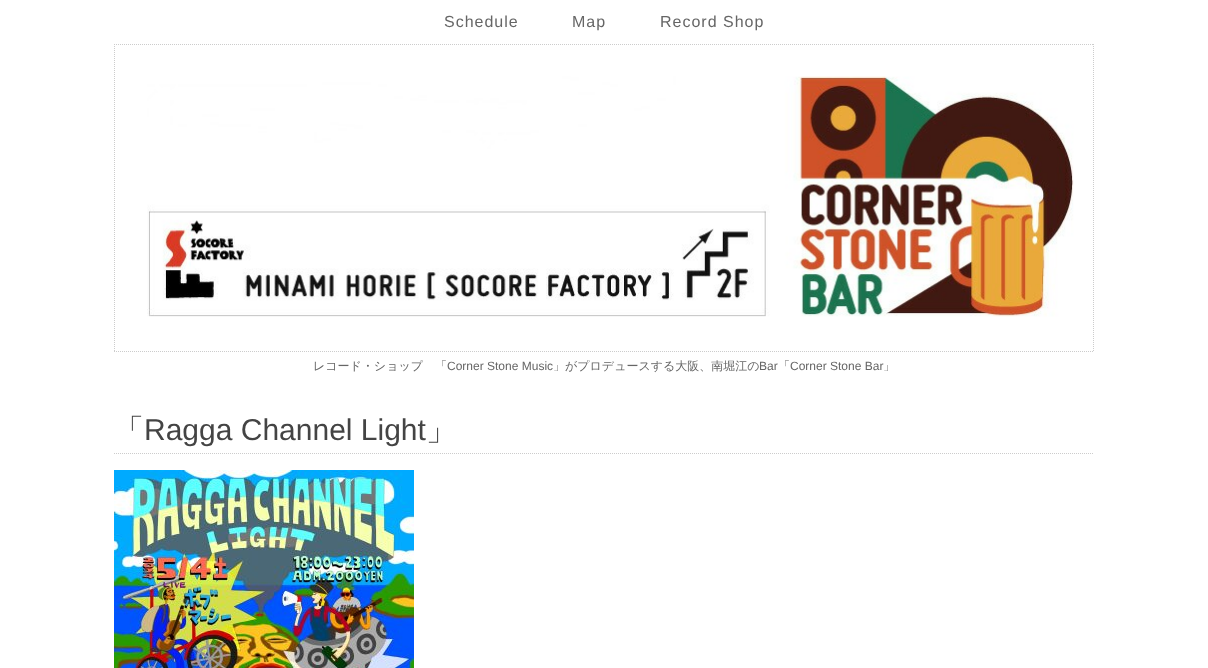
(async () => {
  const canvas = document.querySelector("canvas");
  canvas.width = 1208;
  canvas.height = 668;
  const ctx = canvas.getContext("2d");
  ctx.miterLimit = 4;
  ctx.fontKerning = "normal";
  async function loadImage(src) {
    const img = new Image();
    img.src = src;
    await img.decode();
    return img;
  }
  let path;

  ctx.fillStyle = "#ffffff";
  ctx.fillRect(0, 0, 1208, 668);
  path = new Path2D("M114 44.5H1094");
  ctx.strokeStyle = "#cccccc";
  ctx.setLineDash([1, 1]);
  ctx.stroke(path);
  path = new Path2D("M1093.5 44V352");
  ctx.stroke(path);
  path = new Path2D("M114 351.5H1094");
  ctx.stroke(path);
  path = new Path2D("M114.5 44V352");
  ctx.stroke(path);
  ctx.drawImage(await loadImage("img/1.png"), 147, 76, 927, 241);
  path = new Path2D("M114 453.5H1094");
  ctx.stroke(path);
  ctx.drawImage(await loadImage("img/2.png"), 114, 470, 300, 198);
  ctx.letterSpacing = "1px";
  ctx.font = "16px Liberation Sans";
  ctx.fillStyle = "#666666";
  for (const [text, x, y] of [
    ["Schedule", 444, 27],
    ["Map", 572, 27],
    ["Record Shop", 660, 27],
  ]) {
    ctx.fillText(text, x, y);
  }
  ctx.letterSpacing = "0px";
  ctx.font = "500 12px WenQuanYi Zen Hei";
  ctx.fillText("レコード・ショップ　「", 313, 370);
  ctx.font = "12px Liberation Sans";
  ctx.fillText("Corner Stone Music", 447, 370);
  ctx.font = "500 12px WenQuanYi Zen Hei";
  ctx.fillText("」がプロデュースする大阪、南堀江の", 553, 370);
  ctx.font = "12px Liberation Sans";
  ctx.fillText("Bar", 759, 370);
  ctx.font = "500 12px WenQuanYi Zen Hei";
  ctx.fillText("「", 778, 370);
  ctx.font = "12px Liberation Sans";
  ctx.fillText("Corner Stone Bar", 790, 370);
  ctx.font = "500 12px WenQuanYi Zen Hei";
  ctx.fillText("」", 883, 370);
  ctx.font = "500 30px WenQuanYi Zen Hei";
  ctx.fillStyle = "#444444";
  ctx.fillText("「", 114, 440);
  ctx.font = "30px Liberation Sans";
  ctx.fillText("Ragga Channel Light", 144, 440);
  ctx.font = "500 30px WenQuanYi Zen Hei";
  ctx.fillText("」", 426, 440);
})();
